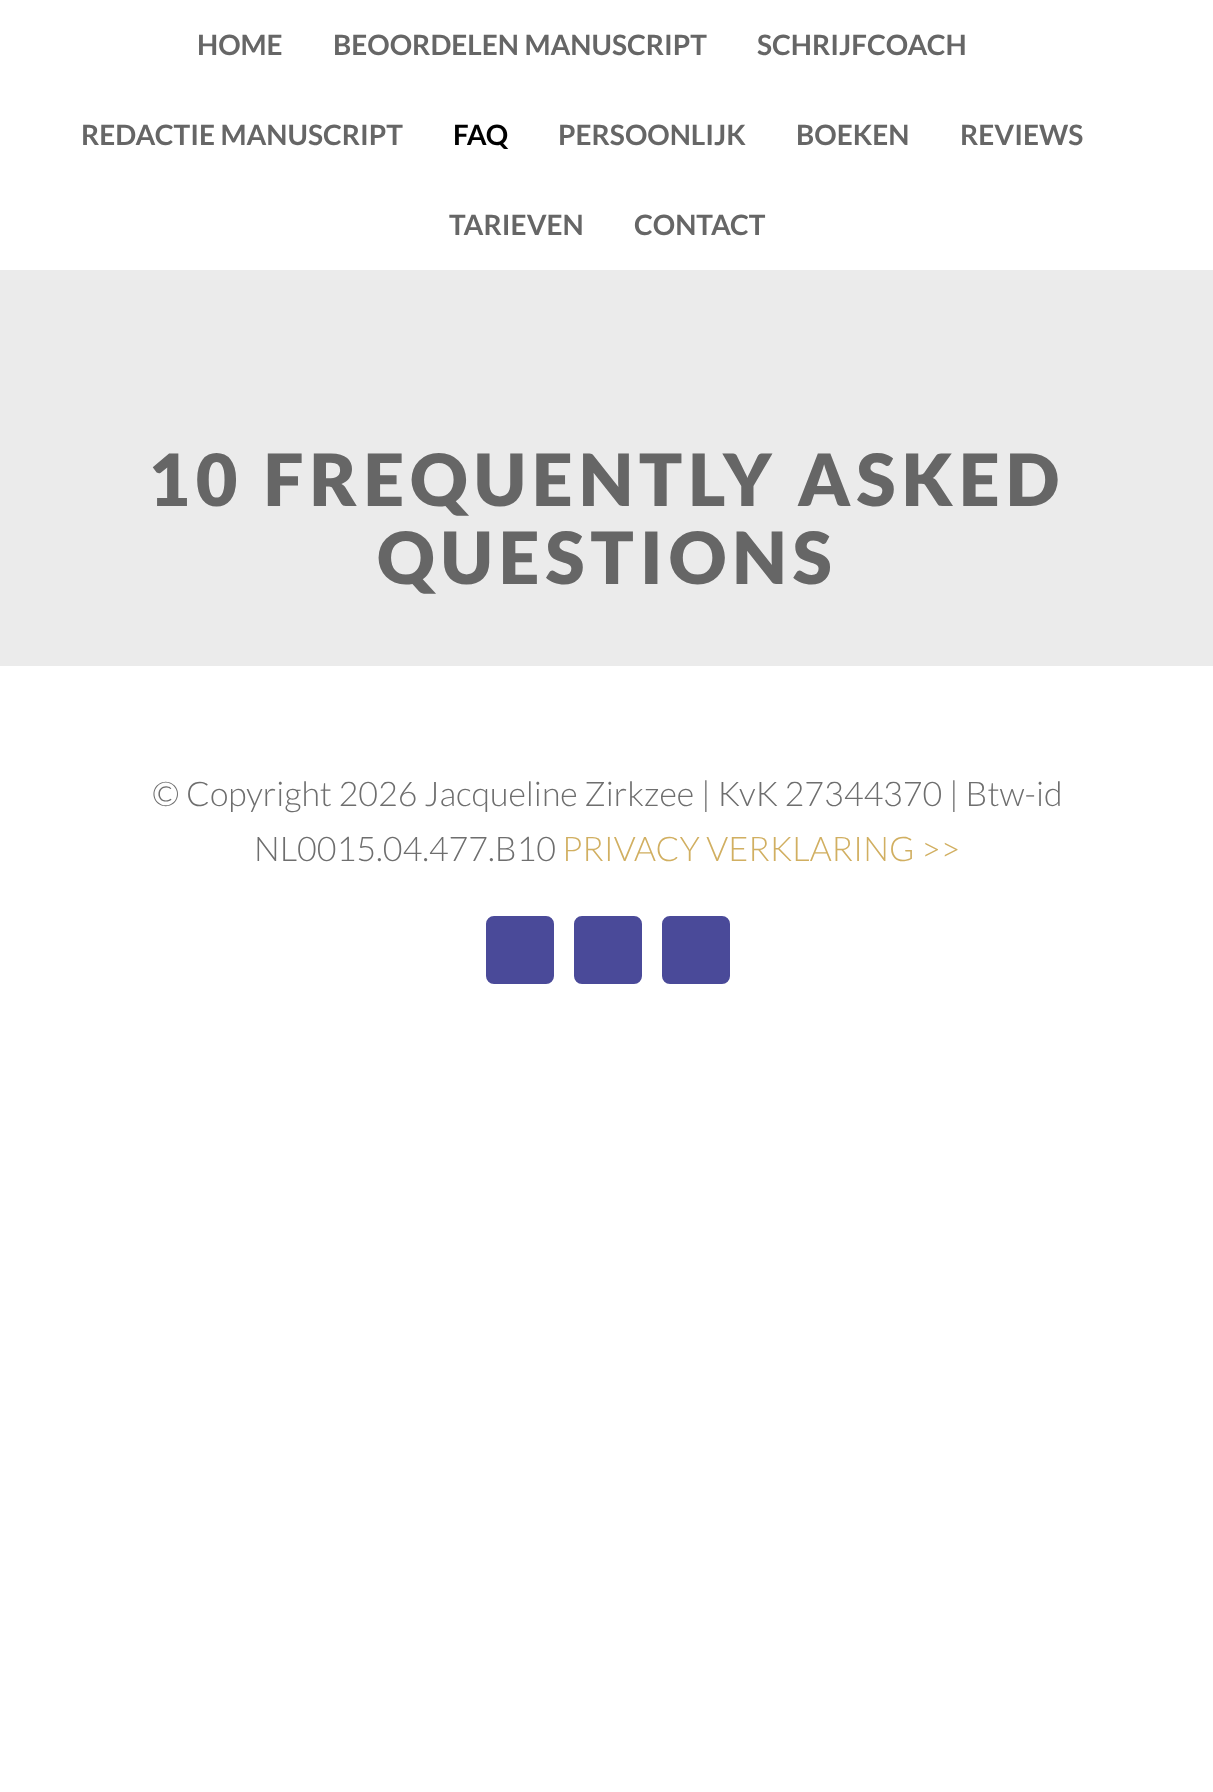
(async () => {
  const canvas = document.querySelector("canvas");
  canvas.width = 1213;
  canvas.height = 1792;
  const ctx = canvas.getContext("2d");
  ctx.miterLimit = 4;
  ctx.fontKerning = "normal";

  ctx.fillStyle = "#ffffff";
  ctx.fillRect(0, 0, 1213, 1792);
  ctx.fillStyle = "#ebebeb";
  ctx.fillRect(0, 270, 1213, 396);
  ctx.fillStyle = "#4a4a99";
  ctx.beginPath();
  ctx.roundRect(487, 917, 66, 66, 7);
  ctx.fill();
  ctx.strokeStyle = "#4a4a99";
  ctx.lineWidth = 2;
  ctx.stroke();
  ctx.beginPath();
  ctx.roundRect(575, 917, 66, 66, 7);
  ctx.fill();
  ctx.stroke();
  ctx.beginPath();
  ctx.roundRect(663, 917, 66, 66, 7);
  ctx.fill();
  ctx.stroke();
  ctx.font = "bold 28px Lato";
  ctx.fillStyle = "#666666";
  for (const [text, x, y] of [
    ["HOME", 197, 55],
    ["BEOORDELEN MANUSCRIPT", 333, 55],
    ["SCHRIJFCOACH", 757, 55],
    ["REDACTIE MANUSCRIPT", 81, 145],
  ]) {
    ctx.fillText(text, x, y);
  }
  ctx.fillStyle = "#000000";
  ctx.fillText("FAQ", 453, 145);
  ctx.fillStyle = "#666666";
  for (const [text, x, y] of [
    ["PERSOONLIJK", 558, 145],
    ["BOEKEN", 796, 145],
    ["REVIEWS", 960, 145],
    ["TARIEVEN", 449, 235],
    ["CONTACT", 634, 235],
  ]) {
    ctx.fillText(text, x, y);
  }
  ctx.letterSpacing = "6px";
  ctx.font = "900 72px Lato";
  ctx.fillText("10 FREQUENTLY ASKED", 148, 506);
  ctx.fillText("QUESTIONS", 377, 584);
  ctx.letterSpacing = "0px";
  ctx.font = "300 34px Lato";
  ctx.fillStyle = "#6e6e6e";
  ctx.fillText("© Copyright 2026 Jacqueline Zirkzee | KvK 27344370 | Btw-id", 152, 806);
  ctx.fillText("NL0015.04.477.B10", 254, 861);
  ctx.fillStyle = "#d1af61";
  ctx.fillText("PRIVACY VERKLARING >>", 562, 861);
})();
